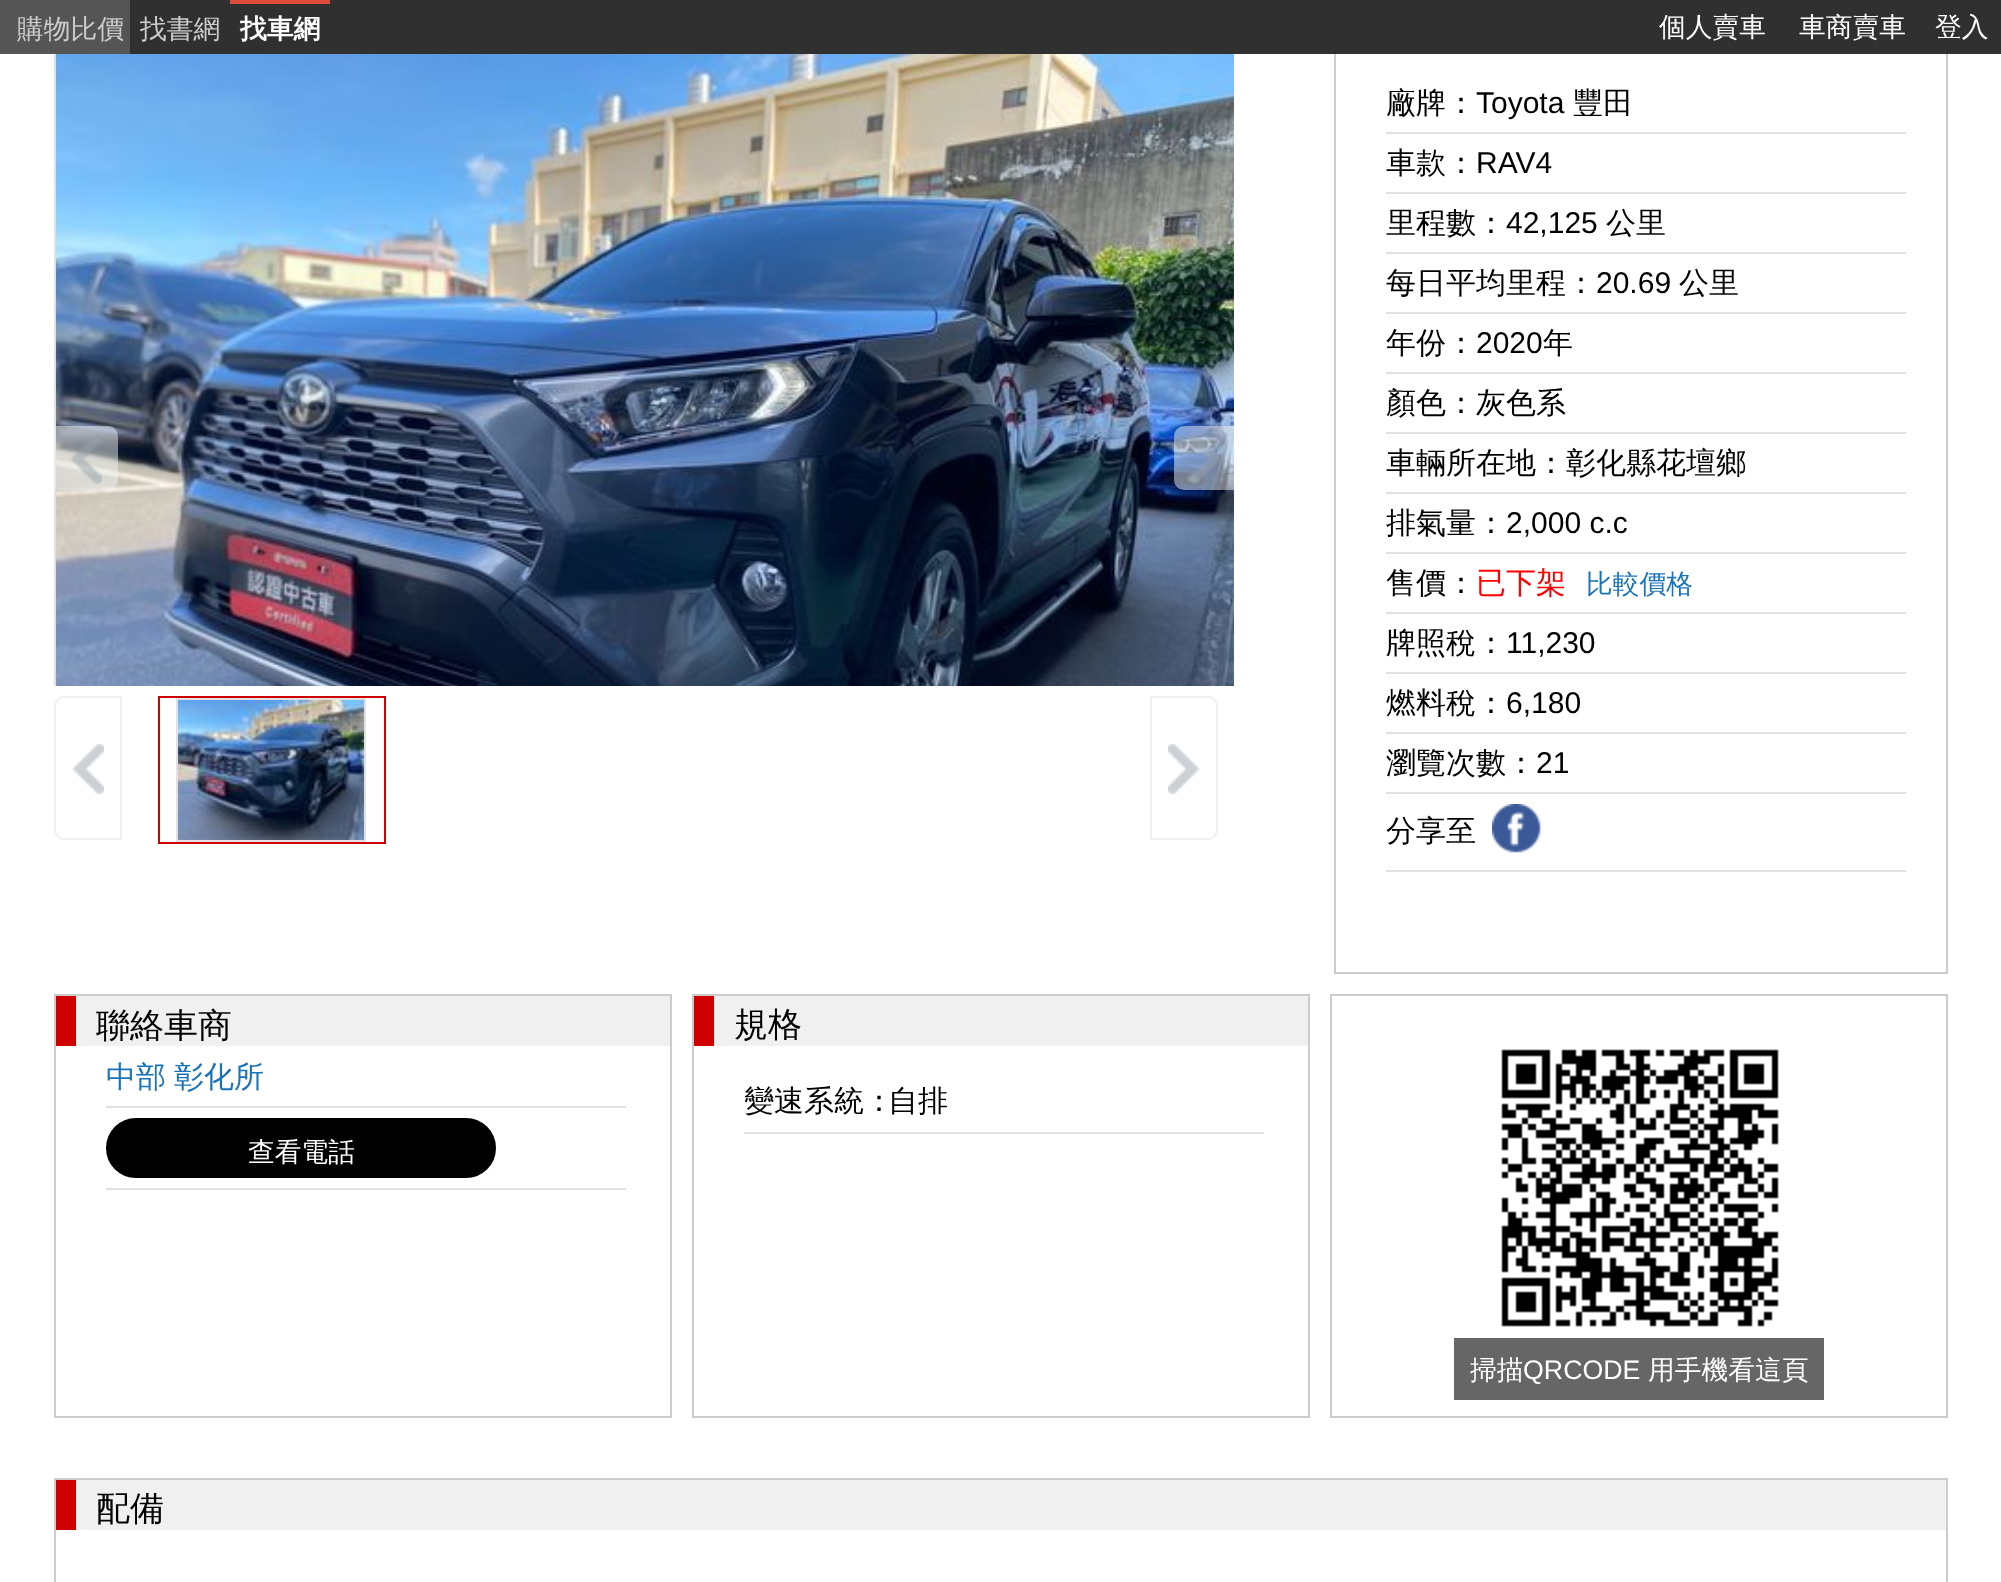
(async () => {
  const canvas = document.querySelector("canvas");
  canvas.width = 2001;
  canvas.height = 1582;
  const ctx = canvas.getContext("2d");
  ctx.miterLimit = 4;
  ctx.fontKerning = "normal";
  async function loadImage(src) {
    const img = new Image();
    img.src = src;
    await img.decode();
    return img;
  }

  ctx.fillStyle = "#ffffff";
  ctx.fillRect(0, 0, 2001, 1582);
  ctx.save();
  ctx.beginPath();
  ctx.rect(54, 46, 1180, 640);
  ctx.clip();
  ctx.strokeStyle = "#e1e1e1";
  ctx.lineWidth = 2;
  ctx.strokeRect(55, 47, 1182, 888);
  ctx.restore();
  ctx.strokeStyle = "#cccccc";
  ctx.lineWidth = 2;
  ctx.strokeRect(1335, 47, 612, 926);
  for (const [x, y, w, h, color] of [
    [130, 0, 1871, 54, "#303030"],
    [0, 0, 130, 54, "#555555"],
    [230, 0, 100, 4, "#dd4b39"],
  ]) {
    ctx.fillStyle = color;
    ctx.fillRect(x, y, w, h);
  }
  ctx.drawImage(await loadImage("img/1.png"), 56, 54, 1178, 632);
  ctx.fillStyle = "rgba(238, 241, 243, 0.5)";
  ctx.beginPath();
  ctx.roundRect(54, 426, 64, 64, [0, 10, 10, 0]);
  ctx.fill();
  ctx.drawImage(await loadImage("img/2.png"), 70, 434, 32, 50);
  ctx.beginPath();
  ctx.roundRect(1174, 426, 60, 64, [10, 0, 0, 10]);
  ctx.fill();
  ctx.drawImage(await loadImage("img/3.png"), 1190, 434, 31, 50);
  ctx.drawImage(await loadImage("img/4.png"), 72, 744, 32, 50);
  ctx.beginPath();
  ctx.roundRect(55, 697, 66, 142, [9, 0, 0, 9]);
  ctx.strokeStyle = "#f0f0f0";
  ctx.stroke();
  ctx.strokeStyle = "#ce0000";
  ctx.strokeRect(159, 697, 226, 146);
  ctx.strokeStyle = "#e1e1e1";
  ctx.strokeRect(177, 699, 188, 142);
  ctx.drawImage(await loadImage("img/5.png"), 178, 700, 186, 140);
  ctx.drawImage(await loadImage("img/6.png"), 1168, 744, 32, 50);
  ctx.beginPath();
  ctx.roundRect(1151, 697, 66, 142, [0, 9, 9, 0]);
  ctx.strokeStyle = "#f0f0f0";
  ctx.stroke();
  for (const [x, y, w, h, color] of [
    [1386, 132, 520, 2, "#e1e1e1"],
    [1386, 192, 520, 2, "#e1e1e1"],
    [1386, 252, 520, 2, "#e1e1e1"],
    [1386, 312, 520, 2, "#e1e1e1"],
    [1386, 372, 520, 2, "#e1e1e1"],
    [1386, 432, 520, 2, "#e1e1e1"],
    [1386, 492, 520, 2, "#e1e1e1"],
    [1386, 552, 520, 2, "#e1e1e1"],
    [1386, 612, 520, 2, "#e1e1e1"],
    [1386, 672, 520, 2, "#e1e1e1"],
    [1386, 732, 520, 2, "#e1e1e1"],
    [1386, 792, 520, 2, "#e1e1e1"],
    [1386, 870, 520, 2, "#e1e1e1"],
  ]) {
    ctx.fillStyle = color;
    ctx.fillRect(x, y, w, h);
  }
  ctx.drawImage(await loadImage("img/7.png"), 1492, 804, 49, 49);
  ctx.strokeStyle = "#cccccc";
  ctx.strokeRect(55, 995, 616, 422);
  for (const [x, y, w, h, color] of [
    [76, 996, 594, 50, "#f0f0f0"],
    [56, 996, 20, 50, "#ce0000"],
    [106, 1106, 520, 2, "#e1e1e1"],
    [106, 1188, 520, 2, "#e1e1e1"],
  ]) {
    ctx.fillStyle = color;
    ctx.fillRect(x, y, w, h);
  }
  ctx.fillStyle = "#000000";
  ctx.beginPath();
  ctx.roundRect(108, 1120, 386, 56, 28);
  ctx.fill();
  ctx.strokeStyle = "#000000";
  ctx.lineWidth = 4;
  ctx.stroke();
  ctx.strokeStyle = "#cccccc";
  ctx.lineWidth = 2;
  ctx.strokeRect(693, 995, 616, 422);
  for (const [x, y, w, h, color] of [
    [714, 996, 594, 50, "#f0f0f0"],
    [694, 996, 20, 50, "#ce0000"],
    [744, 1132, 520, 2, "#e1e1e1"],
  ]) {
    ctx.fillStyle = color;
    ctx.fillRect(x, y, w, h);
  }
  ctx.strokeRect(1331, 995, 616, 422);
  ctx.drawImage(await loadImage("img/8.png"), 1501, 1049, 278, 278);
  ctx.fillStyle = "#666666";
  ctx.fillRect(1454, 1338, 370, 62);
  ctx.strokeRect(55, 1479, 1892, 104);
  ctx.fillStyle = "#f0f0f0";
  ctx.fillRect(76, 1480, 1870, 50);
  ctx.fillStyle = "#ce0000";
  ctx.fillRect(56, 1480, 20, 50);
  ctx.font = "500 26.75px WenQuanYi Zen Hei";
  ctx.fillStyle = "#cccccc";
  ctx.fillText("購物比價", 17, 38);
  ctx.fillText("找書網", 140, 38);
  ctx.font = "bold 26.75px WenQuanYi Zen Hei";
  ctx.fillStyle = "#ffffff";
  ctx.fillText("找車網", 240, 38);
  ctx.font = "500 26.75px WenQuanYi Zen Hei";
  for (const [text, x, y] of [
    ["個人賣車", 1659, 36],
    ["車商賣車", 1799, 36],
    ["登入", 1935, 36],
  ]) {
    ctx.fillText(text, x, y);
  }
  ctx.font = "500 30px WenQuanYi Zen Hei";
  ctx.fillStyle = "#000000";
  ctx.fillText("廠牌：", 1386, 113);
  ctx.font = "30px Liberation Sans";
  ctx.fillText("Toyota", 1476, 113);
  ctx.font = "500 30px WenQuanYi Zen Hei";
  ctx.fillText("豐田", 1573, 113);
  ctx.fillText("車款：", 1386, 173);
  ctx.font = "30px Liberation Sans";
  ctx.fillText("RAV4", 1476, 173);
  ctx.font = "500 30px WenQuanYi Zen Hei";
  ctx.fillText("里程數：", 1386, 233);
  ctx.font = "30px Liberation Sans";
  ctx.fillText("42,125", 1506, 233);
  ctx.font = "500 30px WenQuanYi Zen Hei";
  ctx.fillText("公里", 1606, 233);
  ctx.fillText("每日平均里程：", 1386, 293);
  ctx.font = "30px Liberation Sans";
  ctx.fillText("20.69", 1596, 293);
  ctx.font = "500 30px WenQuanYi Zen Hei";
  ctx.fillText("公里", 1679, 293);
  ctx.fillText("年份：", 1386, 353);
  ctx.font = "30px Liberation Sans";
  ctx.fillText("2020", 1476, 353);
  ctx.font = "500 30px WenQuanYi Zen Hei";
  for (const [text, x, y] of [
    ["年", 1543, 353],
    ["顏色：灰色系", 1386, 413],
    ["車輛所在地：彰化縣花壇鄉", 1386, 473],
    ["排氣量：", 1386, 533],
  ]) {
    ctx.fillText(text, x, y);
  }
  ctx.font = "30px Liberation Sans";
  ctx.fillText("2,000 c.c", 1506, 533);
  ctx.font = "500 30px WenQuanYi Zen Hei";
  ctx.fillText("售價：", 1386, 593);
  ctx.fillStyle = "#ff0000";
  ctx.fillText("已下架", 1476, 593);
  ctx.font = "500 26.75px WenQuanYi Zen Hei";
  ctx.fillStyle = "#1973b9";
  ctx.fillText("比較價格", 1586, 593);
  ctx.font = "500 30px WenQuanYi Zen Hei";
  ctx.fillStyle = "#000000";
  ctx.fillText("牌照稅：", 1386, 653);
  ctx.font = "30px Liberation Sans";
  ctx.fillText("11,230", 1506, 653);
  ctx.font = "500 30px WenQuanYi Zen Hei";
  ctx.fillText("燃料稅：", 1386, 713);
  ctx.font = "30px Liberation Sans";
  ctx.fillText("6,180", 1506, 713);
  ctx.font = "500 30px WenQuanYi Zen Hei";
  ctx.fillText("瀏覽次數：", 1386, 773);
  ctx.font = "30px Liberation Sans";
  ctx.fillText("21", 1536, 773);
  ctx.font = "500 30px WenQuanYi Zen Hei";
  ctx.fillText("分享至", 1386, 841);
  ctx.font = "500 34px WenQuanYi Zen Hei";
  ctx.fillText("聯絡車商", 96, 1037);
  ctx.wordSpacing = "-1px";
  ctx.font = "500 30px WenQuanYi Zen Hei";
  ctx.fillStyle = "#1973b9";
  ctx.fillText("中部 彰化所", 106, 1087);
  ctx.wordSpacing = "0px";
  ctx.font = "500 26.75px WenQuanYi Zen Hei";
  ctx.fillStyle = "#ffffff";
  ctx.fillText("查看電話", 248, 1161);
  ctx.font = "500 34px WenQuanYi Zen Hei";
  ctx.fillStyle = "#000000";
  ctx.fillText("規格", 734, 1036);
  ctx.font = "500 30px WenQuanYi Zen Hei";
  ctx.fillText("變速系統：", 744, 1111);
  ctx.fillText("自排", 888, 1111);
  ctx.font = "500 26.75px WenQuanYi Zen Hei";
  ctx.fillStyle = "#ffffff";
  ctx.fillText("掃描", 1470, 1379);
  ctx.font = "26.75px Liberation Sans";
  ctx.fillText("QRCODE", 1523, 1379);
  ctx.font = "500 26.75px WenQuanYi Zen Hei";
  ctx.fillText("用手機看這頁", 1648, 1379);
  ctx.font = "500 34px WenQuanYi Zen Hei";
  ctx.fillStyle = "#000000";
  ctx.fillText("配備", 96, 1520);
})();
